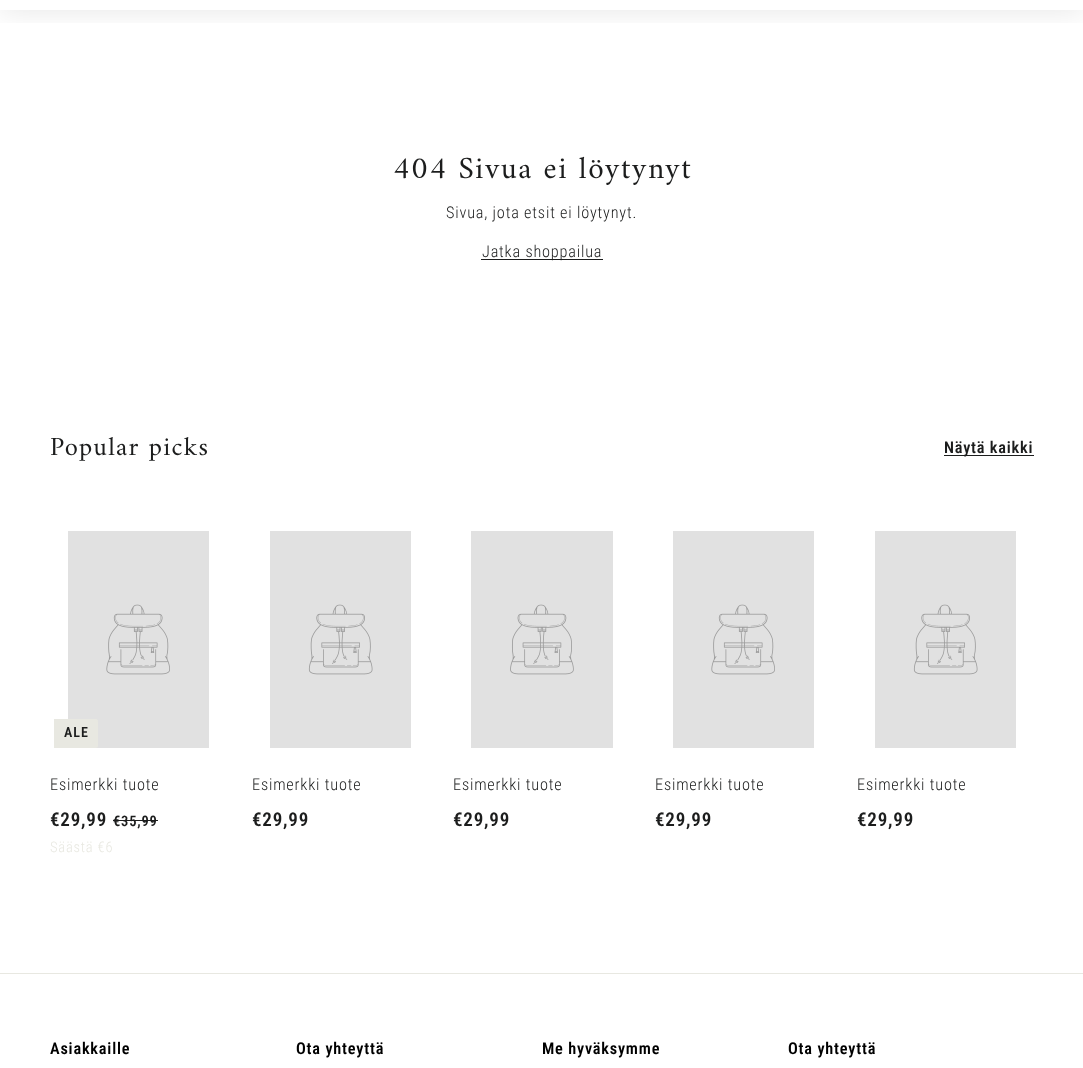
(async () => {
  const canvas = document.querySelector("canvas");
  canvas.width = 1083;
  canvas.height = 1068;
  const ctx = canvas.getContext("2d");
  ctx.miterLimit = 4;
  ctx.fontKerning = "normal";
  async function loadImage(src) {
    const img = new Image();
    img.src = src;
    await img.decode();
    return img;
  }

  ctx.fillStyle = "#ffffff";
  ctx.fillRect(0, 0, 1083, 1068);
  ctx.save();
  ctx.beginPath();
  ctx.rect(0, 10, 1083, 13);
  ctx.clip();
  ctx.fillStyle = "rgba(0, 0, 0, 0.1)";
  ctx.filter = "blur(15.5px)";
  ctx.beginPath();
  ctx.rect(0, -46, 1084, 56);
  ctx.fill();
  ctx.filter = "none";
  ctx.restore();
  for (const [x, y, w, h, color] of [
    [481, 259, 122, 1, "#1c1d1d"],
    [944, 455, 90, 1, "#1c1d1d"],
    [68, 531, 141, 217, "#e1e1e1"],
  ]) {
    ctx.fillStyle = color;
    ctx.fillRect(x, y, w, h);
  }
  ctx.drawImage(await loadImage("img/1.png"), 106, 604, 64, 71);
  ctx.fillStyle = "#e8e8e1";
  ctx.beginPath();
  ctx.roundRect(54, 719, 44, 29, [0, 2.5, 2.5, 0]);
  ctx.fill();
  ctx.fillStyle = "#1c1d1d";
  ctx.fillRect(113, 820, 45, 1);
  ctx.fillStyle = "#e1e1e1";
  ctx.fillRect(270, 531, 141, 217);
  ctx.drawImage(await loadImage("img/2.png"), 308, 604, 65, 71);
  ctx.fillRect(471, 531, 142, 217);
  ctx.drawImage(await loadImage("img/3.png"), 510, 604, 64, 71);
  ctx.fillRect(673, 531, 141, 217);
  ctx.drawImage(await loadImage("img/1.png"), 711, 604, 64, 71);
  ctx.fillRect(875, 531, 141, 217);
  ctx.drawImage(await loadImage("img/2.png"), 913, 604, 65, 71);
  ctx.fillStyle = "#e8e8e1";
  ctx.fillRect(0, 973, 1083, 1);
  ctx.letterSpacing = "1.6px";
  ctx.font = "31.25px Amiri";
  ctx.fillStyle = "#1c1d1d";
  ctx.fillText("404 Sivua ei löytynyt", 393, 178);
  ctx.letterSpacing = "0.8px";
  ctx.font = "300 16.25px Roboto Condensed";
  ctx.fillText("Sivua, jota etsit ei löytynyt.", 446, 218);
  ctx.fillText("Jatka shoppailua", 482, 257);
  ctx.letterSpacing = "1.3px";
  ctx.font = "26.5px Amiri";
  ctx.fillText("Popular picks", 50, 455);
  ctx.letterSpacing = "0.8px";
  ctx.font = "600 16.25px Roboto Condensed";
  ctx.fillText("Näytä kaikki", 944, 453);
  ctx.letterSpacing = "1px";
  ctx.font = "600 14px Roboto Condensed";
  ctx.fillText("ALE", 64, 737);
  ctx.letterSpacing = "0.8px";
  ctx.font = "300 16.25px Roboto Condensed";
  ctx.fillText("Esimerkki tuote", 50, 790);
  ctx.font = "600 19px Roboto Condensed";
  ctx.fillText("€29,99", 50, 826);
  ctx.font = "600 14.5px Roboto Condensed";
  ctx.fillText("€35,99", 113, 826);
  ctx.font = "300 14.5px Roboto Condensed";
  ctx.fillStyle = "#e8e8e1";
  ctx.fillText("Säästä €6", 50, 852);
  ctx.font = "300 16.25px Roboto Condensed";
  ctx.fillStyle = "#1c1d1d";
  ctx.fillText("Esimerkki tuote", 252, 790);
  ctx.font = "600 19px Roboto Condensed";
  ctx.fillText("€29,99", 252, 826);
  ctx.font = "300 16.25px Roboto Condensed";
  ctx.fillText("Esimerkki tuote", 453, 790);
  ctx.font = "600 19px Roboto Condensed";
  ctx.fillText("€29,99", 453, 826);
  ctx.font = "300 16.25px Roboto Condensed";
  ctx.fillText("Esimerkki tuote", 655, 790);
  ctx.font = "600 19px Roboto Condensed";
  ctx.fillText("€29,99", 655, 826);
  ctx.font = "300 16.25px Roboto Condensed";
  ctx.fillText("Esimerkki tuote", 857, 790);
  ctx.font = "600 19px Roboto Condensed";
  ctx.fillText("€29,99", 857, 826);
  ctx.font = "600 16.25px Roboto Condensed";
  ctx.fillStyle = "#000000";
  for (const [text, x, y] of [
    ["Asiakkaille", 50, 1054],
    ["Ota yhteyttä", 296, 1054],
    ["Me hyväksymme", 542, 1054],
    ["Ota yhteyttä", 788, 1054],
  ]) {
    ctx.fillText(text, x, y);
  }
})();
